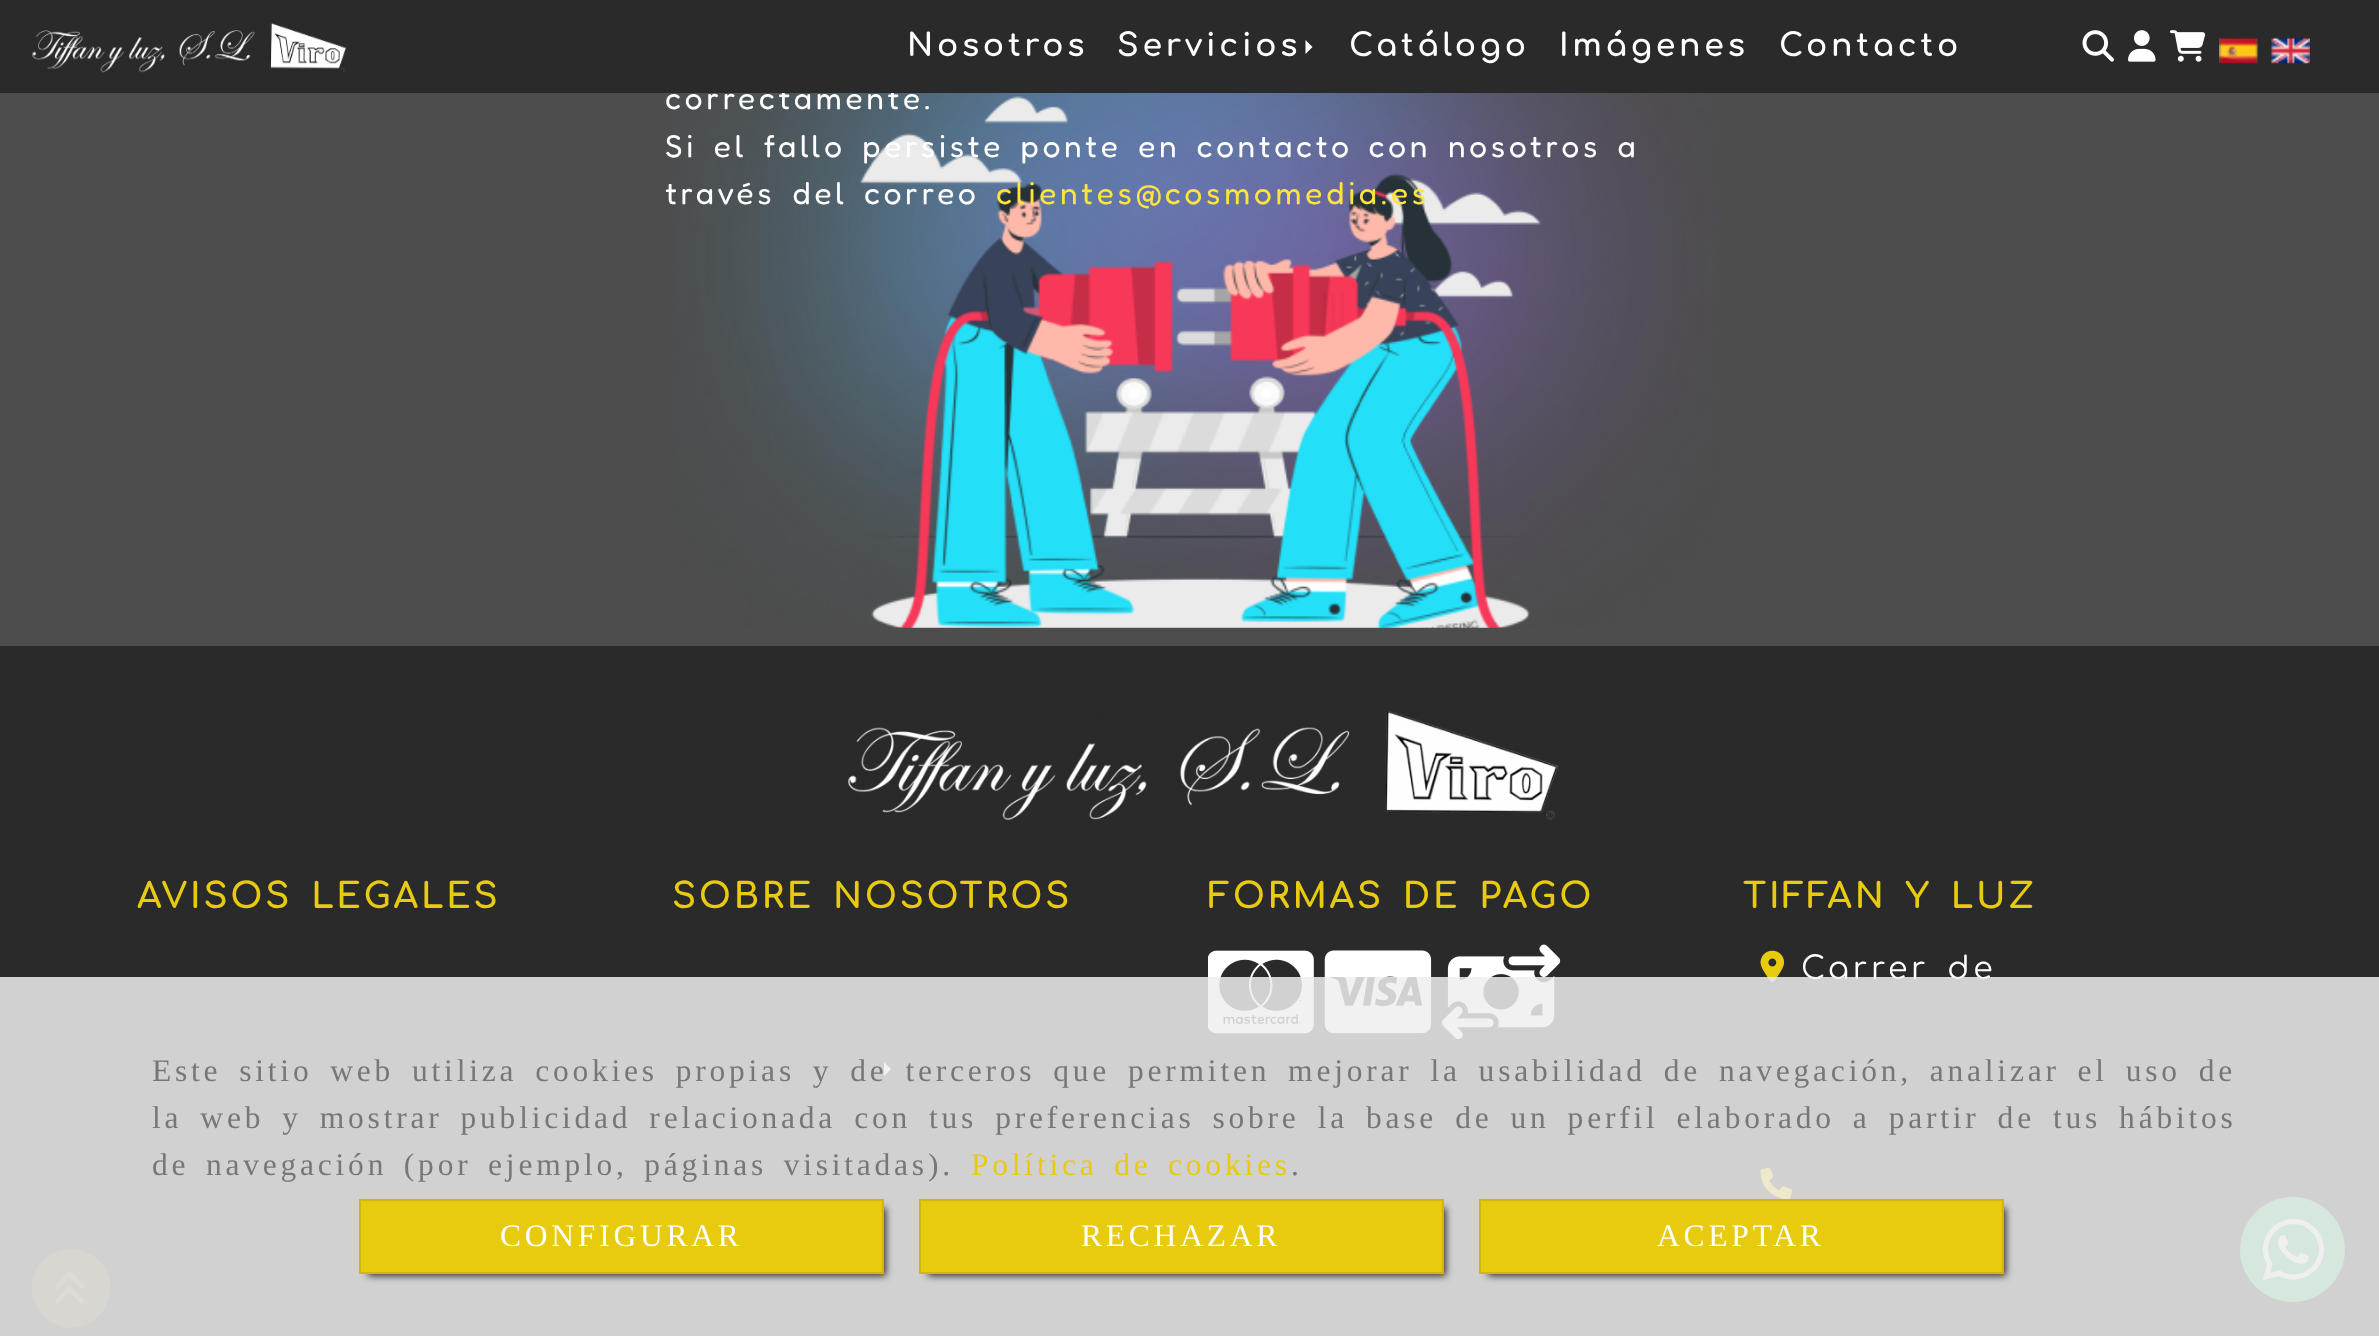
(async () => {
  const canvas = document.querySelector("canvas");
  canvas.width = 2379;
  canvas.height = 1336;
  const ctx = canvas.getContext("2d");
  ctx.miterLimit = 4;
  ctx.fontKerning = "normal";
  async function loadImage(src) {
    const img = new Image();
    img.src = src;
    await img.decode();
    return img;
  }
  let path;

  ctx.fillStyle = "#4d4d4d";
  ctx.fillRect(0, 0, 2379, 1336);
  ctx.drawImage(await loadImage("img/7.png"), 673, 93, 1046, 535);
  ctx.fillStyle = "#2a2a2a";
  ctx.fillRect(0, 646, 2379, 690);
  ctx.drawImage(await loadImage("img/8.png"), 848, 710, 711, 110);
  ctx.fillStyle = "#ffffff";
  path = new Path2D("M884 1076V1062L891 1069Z");
  ctx.fill(path);
  ctx.drawImage(await loadImage("img/9.png"), 1208, 950, 106, 84);
  ctx.drawImage(await loadImage("img/10.png"), 1324, 950, 108, 84);
  ctx.drawImage(await loadImage("img/11.png"), 1442, 944, 119, 96);
  ctx.drawImage(await loadImage("img/12.png"), 1760, 950, 25, 33);
  ctx.drawImage(await loadImage("img/13.png"), 1760, 1167, 32, 32);
  ctx.fillStyle = "#504a25";
  path = new Path2D("M71 1328C108 1327 125 1280 95 1257C88 1252 79 1249 71 1249C62 1249 54 1252 47 1257C17 1280 34 1327 71 1328Z");
  ctx.fill(path);
  ctx.drawImage(await loadImage("img/14.png"), 55, 1271, 30, 33);
  ctx.fillStyle = "#4eb980";
  ctx.beginPath();
  ctx.arc(2292.5, 1249.5, 52.5, 0, Math.PI * 2);
  ctx.fill();
  ctx.drawImage(await loadImage("img/15.png"), 2262, 1218, 62, 62);
  ctx.letterSpacing = "3.78px";
  ctx.font = "31.5px Fredoka";
  ctx.fillStyle = "#ffffff";
  ctx.fillText("corréctamente.", 665, 109);
  ctx.fillStyle = "#2a2a2a";
  ctx.fillRect(0, 0, 2379, 93);
  ctx.drawImage(await loadImage("img/4.png"), 2170, 30, 36, 32);
  ctx.drawImage(await loadImage("img/2.png"), 2082, 30, 32, 32);
  ctx.drawImage(await loadImage("img/6.png"), 2271, 37, 39, 27);
  ctx.drawImage(await loadImage("img/5.png"), 2219, 37, 39, 27);
  ctx.drawImage(await loadImage("img/3.png"), 2128, 30, 28, 32);
  ctx.font = "bold 31.5px Comfortaa";
  ctx.fillStyle = "#ffffff";
  for (const [text, x, y] of [
    ["Contacto", 1779, 56],
    ["Imágenes", 1559, 56],
    ["Catálogo", 1349, 56],
  ]) {
    ctx.fillText(text, x, y);
  }
  path = new Path2D("M1305.5 54V40L1312.5 47Z");
  ctx.fill(path);
  ctx.fillText("Servicios", 1117, 56);
  ctx.fillText("Nosotros", 907, 56);
  ctx.drawImage(await loadImage("img/1.png"), 32, 23, 315, 50);
  ctx.wordSpacing = "5px";
  ctx.font = "31.5px Fredoka";
  ctx.fillText("Si el fallo persiste ponte en contacto con nosotros a", 665, 157);
  ctx.fillText("través del correo", 665, 204);
  ctx.wordSpacing = "0px";
  ctx.fillStyle = "#ffe43d";
  ctx.fillText("clientes@cosmomedia.es", 996, 204);
  ctx.letterSpacing = "2.75px";
  ctx.wordSpacing = "6px";
  ctx.font = "bold 35px Comfortaa";
  ctx.fillStyle = "#e8ca0f";
  for (const [text, x, y] of [
    ["AVISOS LEGALES", 137, 908],
    ["SOBRE NOSOTROS", 672, 908],
    ["FORMAS DE PAGO", 1208, 908],
    ["TIFFAN Y LUZ", 1743, 908],
  ]) {
    ctx.fillText(text, x, y);
  }
  ctx.letterSpacing = "3.78px";
  ctx.wordSpacing = "5px";
  ctx.font = "31.5px Comfortaa";
  ctx.fillStyle = "#ffffff";
  ctx.fillText("Carrer de", 1801, 979);
  ctx.fillStyle = "rgba(238, 238, 238, 0.85)";
  ctx.fillRect(0, 977, 2379, 359);
  ctx.wordSpacing = "6.25px";
  ctx.font = "31.5px Liberation Serif";
  ctx.fillStyle = "#777777";
  ctx.fillText("Este sitio web utiliza cookies propias y de terceros que permiten mejorar la usabilidad de navegación, analizar el uso de", 152, 1081);
  ctx.wordSpacing = "6.4px";
  ctx.fillText("la web y mostrar publicidad relacionada con tus preferencias sobre la base de un perfil elaborado a partir de tus hábitos", 152, 1128);
  ctx.wordSpacing = "5px";
  ctx.fillText("de navegación (por ejemplo, páginas visitadas).", 152, 1175);
  ctx.fillStyle = "#e8ca0f";
  ctx.fillText("Política de cookies", 971, 1175);
  ctx.wordSpacing = "0px";
  ctx.fillStyle = "#777777";
  ctx.fillText(".", 1291, 1175);
  ctx.fillStyle = "rgba(0, 0, 0, 0.75)";
  ctx.filter = "blur(3.5px)";
  ctx.beginPath();
  ctx.rect(368, 1208, 518, 68);
  ctx.fill();
  ctx.filter = "none";
  ctx.fillStyle = "#e8ca0f";
  ctx.beginPath();
  ctx.rect(360, 1200, 523, 73);
  ctx.fill();
  ctx.strokeStyle = "#d0b50d";
  ctx.lineWidth = 2;
  ctx.stroke();
  ctx.fillStyle = "#ffffff";
  ctx.fillText("CONFIGURAR", 500, 1246);
  ctx.fillStyle = "rgba(0, 0, 0, 0.75)";
  ctx.filter = "blur(3.5px)";
  ctx.beginPath();
  ctx.rect(928, 1208, 518, 68);
  ctx.fill();
  ctx.filter = "none";
  ctx.fillStyle = "#e8ca0f";
  ctx.beginPath();
  ctx.rect(920, 1200, 523, 73);
  ctx.fill();
  ctx.stroke();
  ctx.fillStyle = "#ffffff";
  ctx.fillText("RECHAZAR", 1081, 1246);
  ctx.fillStyle = "rgba(0, 0, 0, 0.75)";
  ctx.filter = "blur(3.5px)";
  ctx.beginPath();
  ctx.rect(1488, 1208, 518, 68);
  ctx.fill();
  ctx.filter = "none";
  ctx.fillStyle = "#e8ca0f";
  ctx.beginPath();
  ctx.rect(1480, 1200, 523, 73);
  ctx.fill();
  ctx.stroke();
  ctx.fillStyle = "#ffffff";
  ctx.fillText("ACEPTAR", 1657, 1246);
})();
